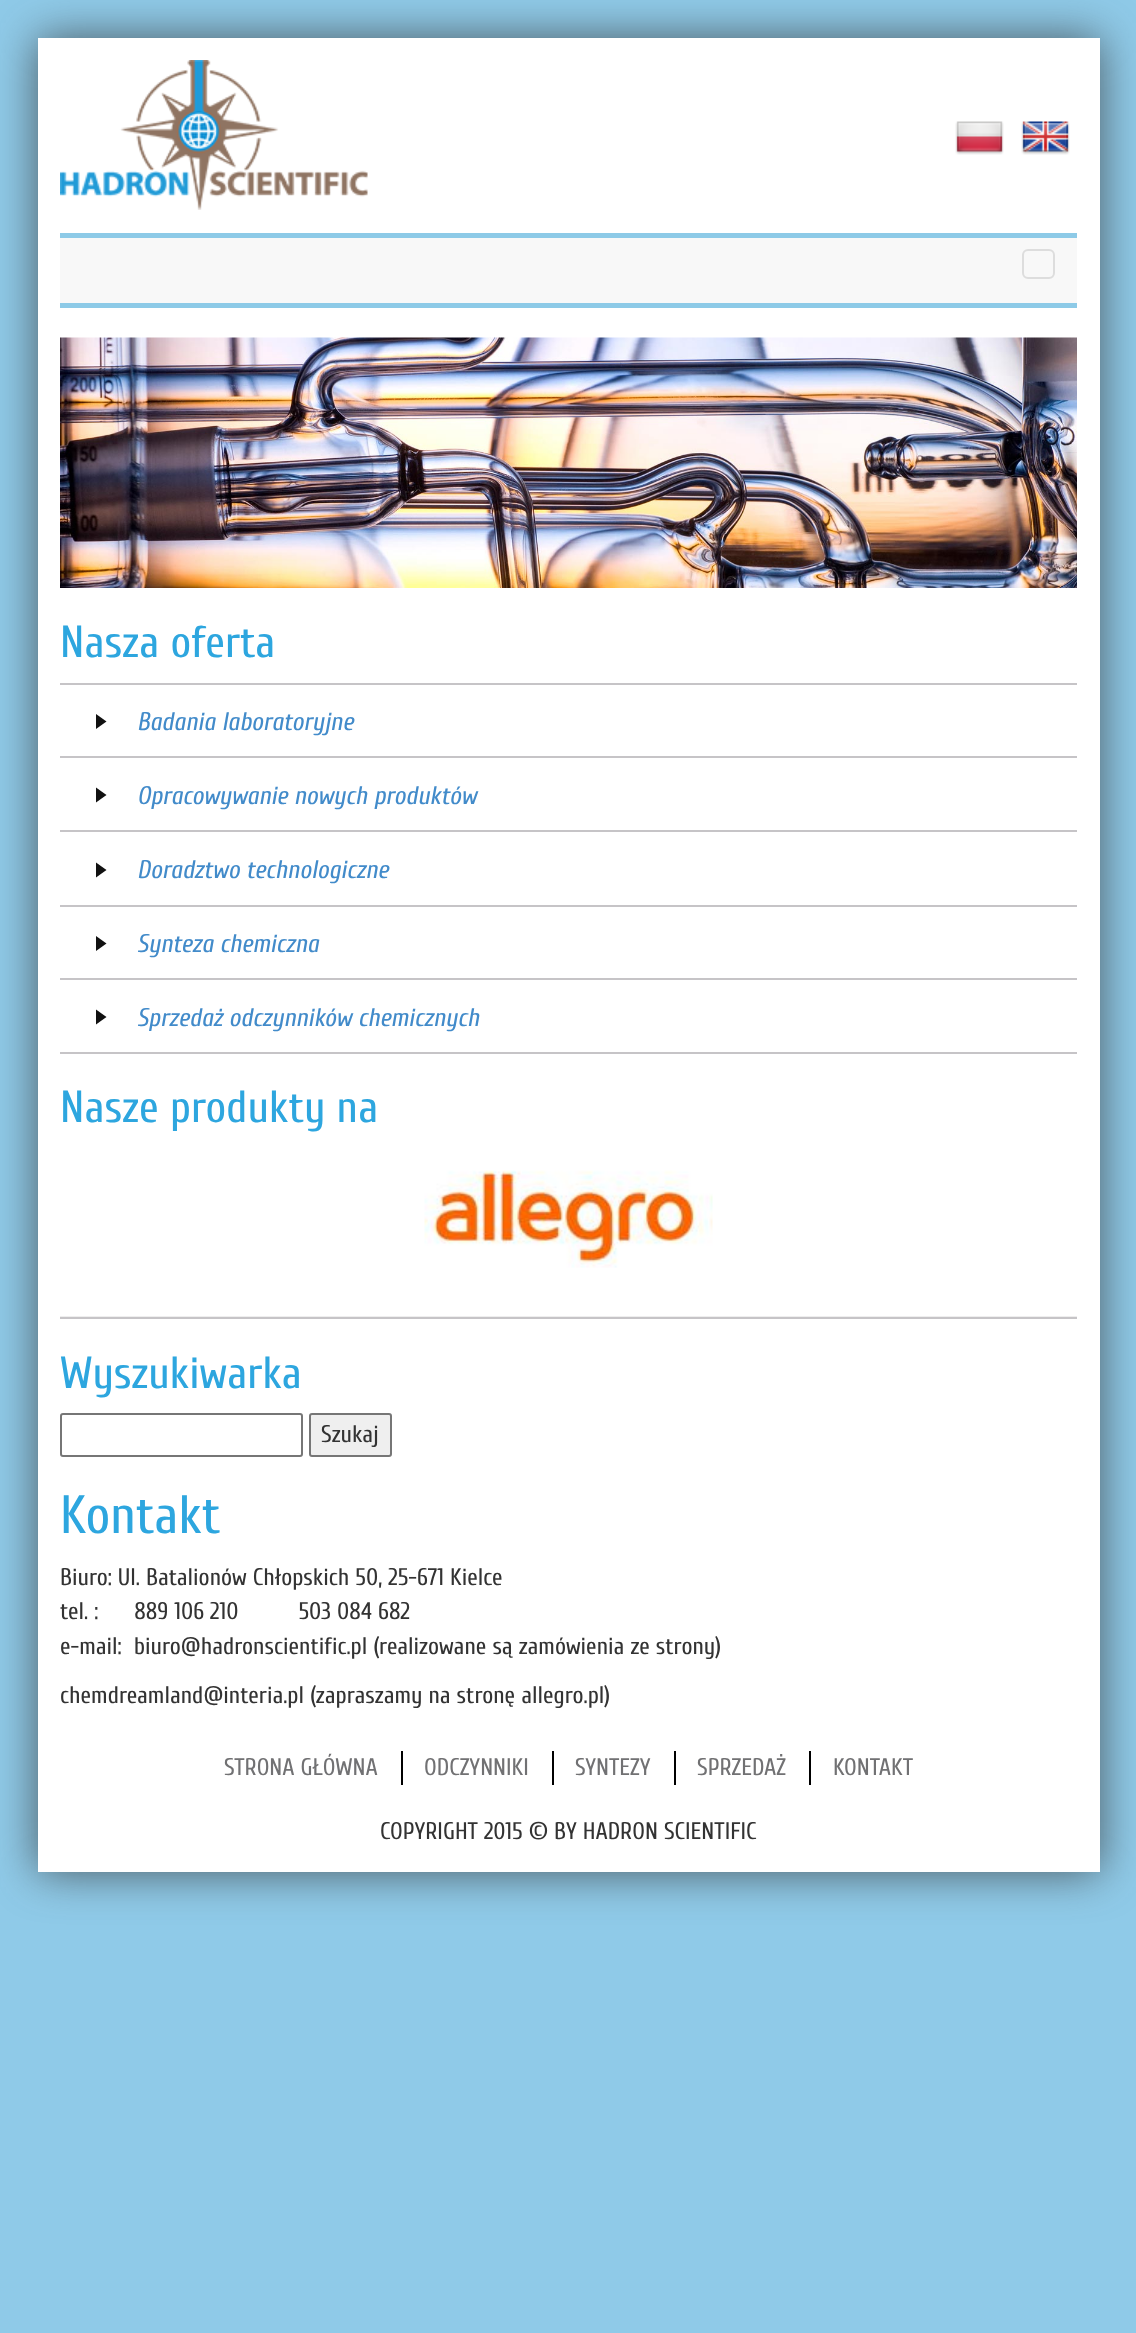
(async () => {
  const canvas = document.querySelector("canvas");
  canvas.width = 1136;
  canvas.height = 2333;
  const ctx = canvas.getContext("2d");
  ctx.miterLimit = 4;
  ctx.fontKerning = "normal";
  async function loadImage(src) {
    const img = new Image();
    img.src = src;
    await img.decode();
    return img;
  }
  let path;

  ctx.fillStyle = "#8fcae8";
  ctx.fillRect(0, 0, 1136, 2333);
  ctx.fillStyle = "rgba(50, 50, 50, 0.75)";
  ctx.filter = "blur(22.5px)";
  ctx.beginPath();
  ctx.rect(38, 38, 1062, 1834);
  ctx.fill();
  ctx.filter = "none";
  ctx.fillStyle = "#ffffff";
  ctx.fillRect(38, 38, 1062, 1834);
  ctx.drawImage(await loadImage("img/1.png"), 60, 60, 308, 150);
  ctx.drawImage(await loadImage("img/2.png"), 955, 121, 49, 34);
  ctx.drawImage(await loadImage("img/3.png"), 1021, 121, 49, 34);
  for (const [x, y, w, h, color] of [
    [60, 238, 1017, 65, "#f8f8f8"],
    [60, 233, 1017, 5, "#8dcae7"],
    [60, 303, 1017, 5, "#8dcae7"],
  ]) {
    ctx.fillStyle = color;
    ctx.fillRect(x, y, w, h);
  }
  ctx.beginPath();
  ctx.roundRect(1023, 250, 31, 28, 5);
  ctx.strokeStyle = "#dddddd";
  ctx.lineWidth = 2;
  ctx.stroke();
  ctx.drawImage(await loadImage("img/4.png"), 60, 337, 1017, 251);
  ctx.fillStyle = "#c6c4c7";
  ctx.fillRect(60, 683, 1017, 2);
  ctx.fillRect(60, 756, 1017, 2);
  ctx.fillStyle = "#111111";
  path = new Path2D("M96 729V714L106.5 721.5Z");
  ctx.fill(path);
  ctx.fillStyle = "#c6c4c7";
  ctx.fillRect(60, 830, 1017, 2);
  ctx.fillStyle = "#111111";
  path = new Path2D("M96 802.5V787.5L106.5 795Z");
  ctx.fill(path);
  ctx.fillStyle = "#c6c4c7";
  ctx.fillRect(60, 905, 1017, 2);
  ctx.fillStyle = "#111111";
  path = new Path2D("M96 877.5V862.5L106.5 870Z");
  ctx.fill(path);
  ctx.fillStyle = "#c6c4c7";
  ctx.fillRect(60, 978, 1017, 2);
  ctx.fillStyle = "#111111";
  path = new Path2D("M96 951V936L106.5 943.5Z");
  ctx.fill(path);
  ctx.fillStyle = "#c6c4c7";
  ctx.fillRect(60, 1052, 1017, 2);
  ctx.fillStyle = "#111111";
  path = new Path2D("M96 1024.5V1009.5L106.5 1017Z");
  ctx.fill(path);
  ctx.drawImage(await loadImage("img/5.png"), 424, 1170, 289, 98);
  ctx.fillStyle = "#eeeeee";
  ctx.fillRect(60, 1316, 1017, 1);
  ctx.fillStyle = "#c6c4c7";
  ctx.fillRect(60, 1317, 1017, 2);
  ctx.beginPath();
  ctx.roundRect(61, 1414, 241, 42, 2);
  ctx.strokeStyle = "#767676";
  ctx.stroke();
  ctx.fillStyle = "#efefef";
  ctx.beginPath();
  ctx.roundRect(310, 1414, 81, 42, 2);
  ctx.fill();
  ctx.stroke();
  for (const [x, y, w, h, color] of [
    [401, 1751, 2, 34, "#000000"],
    [552, 1751, 2, 34, "#000000"],
    [674, 1751, 2, 34, "#000000"],
    [809, 1751, 2, 34, "#000000"],
  ]) {
    ctx.fillStyle = color;
    ctx.fillRect(x, y, w, h);
  }
  ctx.font = "45px Cuprum";
  ctx.fillStyle = "#2da6df";
  ctx.fillText("Nasza oferta", 60, 657);
  ctx.font = "italic 25.5px Cuprum";
  ctx.fillStyle = "#428bca";
  for (const [text, x, y] of [
    ["Badania laboratoryjne", 137, 730],
    ["Opracowywanie nowych produktów", 137, 804],
    ["Doradztwo technologiczne", 137, 878],
    ["Synteza chemiczna", 137, 952],
    ["Sprzedaż odczynników chemicznych", 137, 1026],
  ]) {
    ctx.fillText(text, x, y);
  }
  ctx.font = "45px Cuprum";
  ctx.fillStyle = "#2da6df";
  ctx.fillText("Nasze produkty na", 60, 1122);
  ctx.fillText("Wyszukiwarka", 60, 1388);
  ctx.font = "24px Cuprum";
  ctx.fillStyle = "#333333";
  ctx.fillText("Szukaj", 321, 1442);
  ctx.font = "54px Cuprum";
  ctx.fillStyle = "#2da6df";
  ctx.fillText("Kontakt", 60, 1533);
  ctx.font = "24px Cuprum";
  ctx.fillStyle = "#333333";
  for (const [text, x, y] of [
    ["Biuro: Ul. Batalionów Chłopskich 50, 25-671 Kielce", 60, 1585],
    ["tel. :      889 106 210          503 084 682", 60, 1619],
    ["e-mail:  biuro@hadronscientific.pl (realizowane są zamówienia ze strony)", 60, 1654],
    ["chemdreamland@interia.pl (zapraszamy na stronę allegro.pl)", 60, 1703],
  ]) {
    ctx.fillText(text, x, y);
  }
  ctx.fillStyle = "#717173";
  for (const [text, x, y] of [
    ["STRONA GŁÓWNA", 224, 1775],
    ["ODCZYNNIKI", 424, 1775],
    ["SYNTEZY", 575, 1775],
    ["SPRZEDAŻ", 697, 1775],
    ["KONTAKT", 833, 1775],
  ]) {
    ctx.fillText(text, x, y);
  }
  ctx.fillStyle = "#333333";
  ctx.fillText("COPYRIGHT 2015 © BY HADRON SCIENTIFIC", 380, 1839);
})();
